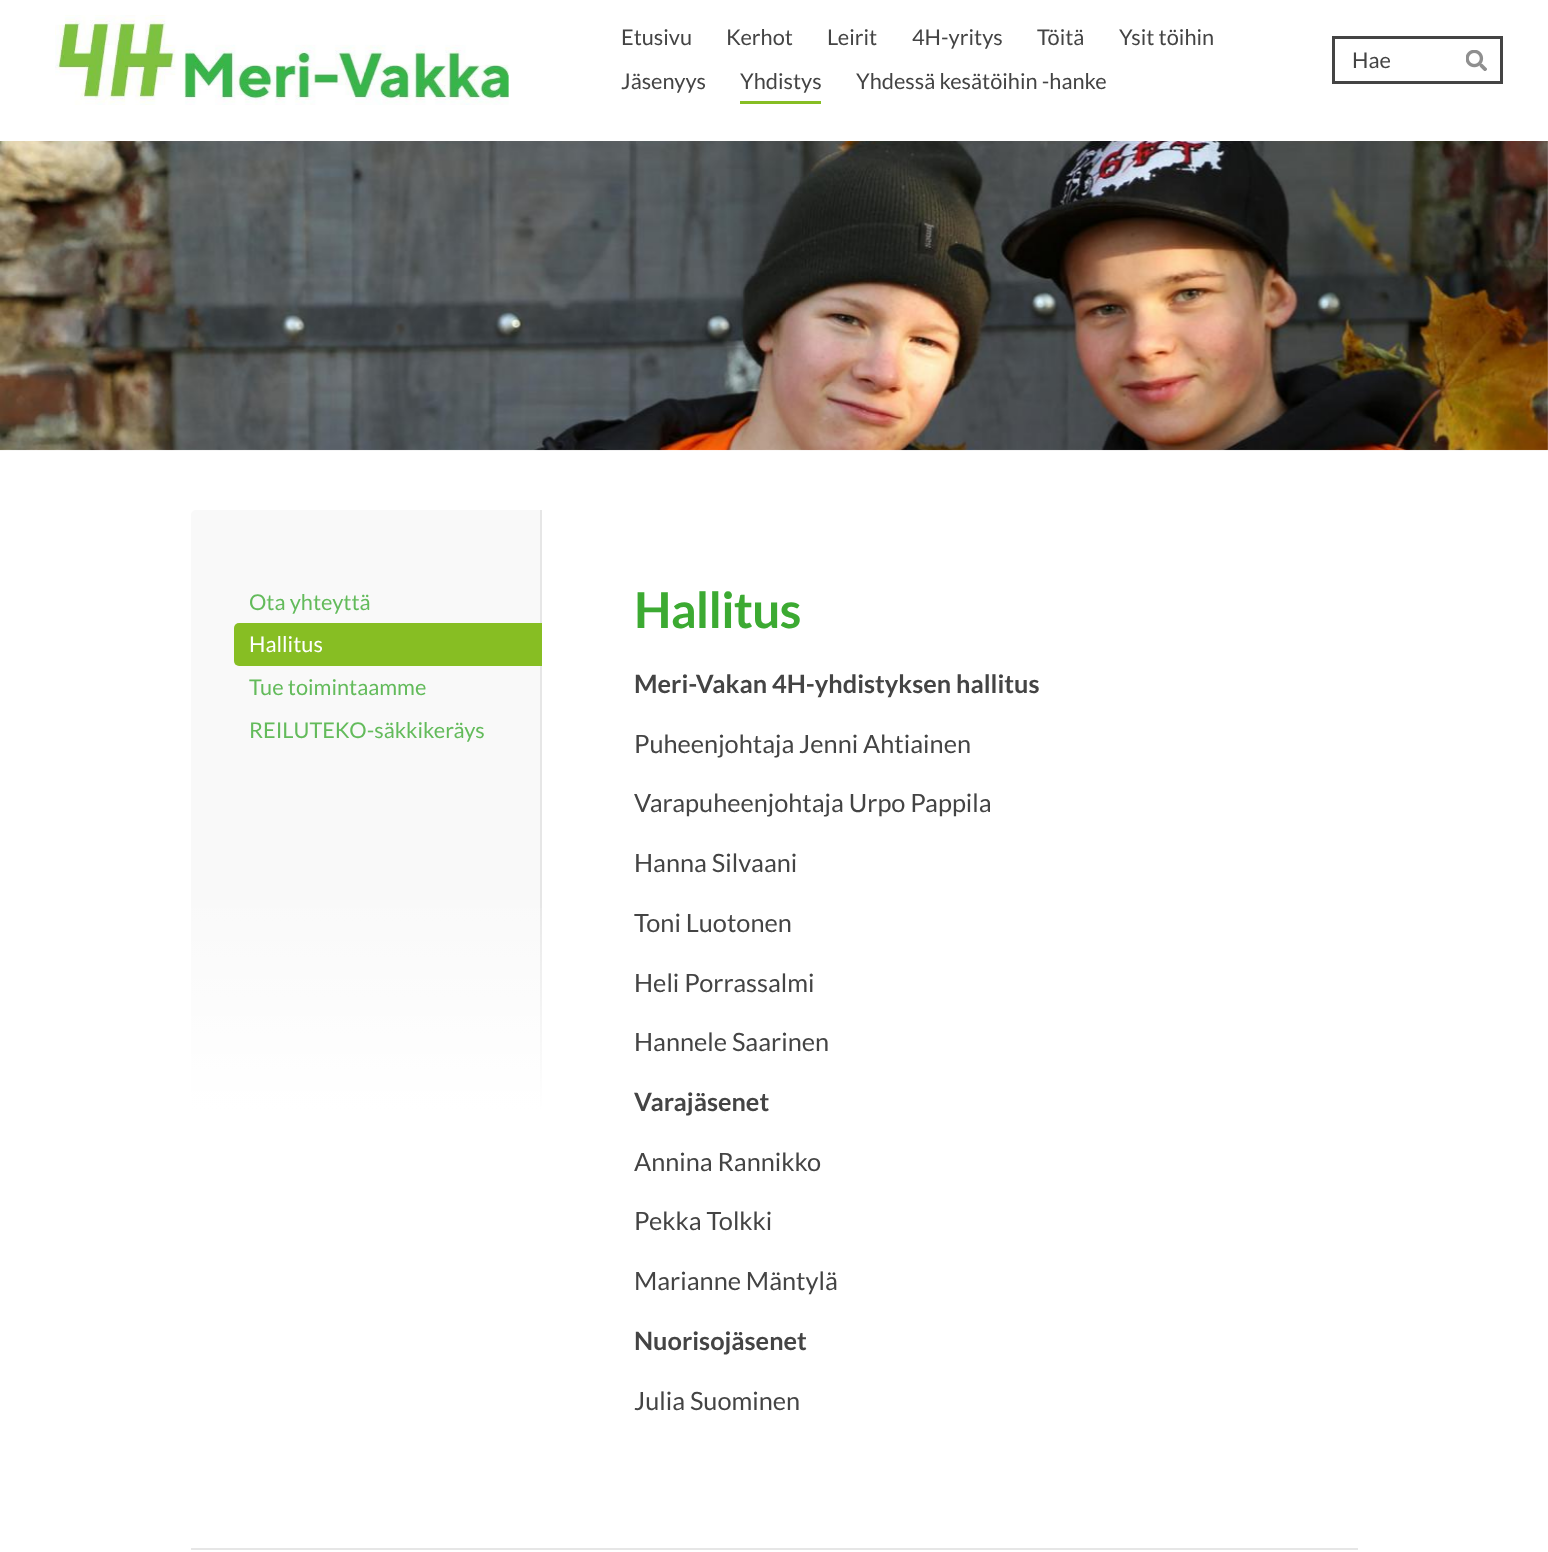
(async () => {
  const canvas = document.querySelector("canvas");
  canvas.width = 1548;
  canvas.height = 1552;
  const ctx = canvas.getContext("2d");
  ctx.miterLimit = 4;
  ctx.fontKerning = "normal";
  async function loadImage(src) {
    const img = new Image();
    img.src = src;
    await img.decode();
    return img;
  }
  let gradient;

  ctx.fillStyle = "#ffffff";
  ctx.fillRect(0, 0, 1548, 1552);
  ctx.drawImage(await loadImage("img/1.png"), 0, 141, 1548, 310);
  ctx.drawImage(await loadImage("img/2.png"), 55, 15, 454, 90);
  ctx.fillStyle = "#87be23";
  ctx.fillRect(740, 101, 81, 3);
  ctx.strokeStyle = "#444444";
  ctx.lineWidth = 3;
  ctx.strokeRect(1333.5, 37.5, 168, 45);
  ctx.drawImage(await loadImage("img/3.png"), 1466, 50, 21, 21);
  ctx.fillStyle = "#f9f9f9";
  ctx.beginPath();
  ctx.roundRect(191, 510, 351, 600, [5, 0, 0, 0]);
  ctx.fill();
  ctx.fillStyle = "#e6e6e6";
  ctx.fillRect(540, 510, 2, 600);
  ctx.fillStyle = "#87be23";
  ctx.beginPath();
  ctx.roundRect(234, 623, 308, 43, [5, 0, 0, 5]);
  ctx.fill();
  gradient = ctx.createLinearGradient(366, 885, 366, 1110);
  gradient.addColorStop(0, "rgba(255, 255, 255, 0)");
  gradient.addColorStop(1, "#ffffff");
  ctx.fillStyle = gradient;
  ctx.fillRect(191, 908, 351, 202);
  ctx.fillStyle = "#e6e6e6";
  ctx.fillRect(191, 1548, 1167, 2);
  ctx.font = "21.75px Lato";
  ctx.fillStyle = "#444444";
  for (const [text, x, y] of [
    ["Etusivu", 621, 45],
    ["Kerhot", 726, 45],
    ["Leirit", 827, 45],
    ["4H-yritys", 912, 45],
    ["Töitä", 1037, 45],
    ["Ysit töihin", 1119, 45],
    ["Jäsenyys", 621, 89],
    ["Yhdistys", 740, 89],
    ["Yhdessä kesätöihin -hanke", 856, 89],
    ["Hae", 1352, 68],
  ]) {
    ctx.fillText(text, x, y);
  }
  ctx.fillStyle = "#63bb5b";
  ctx.fillText("Ota yhteyttä", 249, 610);
  ctx.fillStyle = "#ffffff";
  ctx.fillText("Hallitus", 249, 652);
  ctx.fillStyle = "#63bb5b";
  ctx.fillText("Tue toimintaamme", 249, 695);
  ctx.fillText("REILUTEKO-säkkikeräys", 249, 738);
  ctx.letterSpacing = "-0.75px";
  ctx.font = "bold 49.5px Lato";
  ctx.fillStyle = "#3caa32";
  ctx.fillText("Hallitus", 634, 628);
  ctx.letterSpacing = "0px";
  ctx.font = "bold 25.3px Lato";
  ctx.fillStyle = "#444444";
  ctx.fillText("Meri-Vakan 4H-yhdistyksen hallitus", 634, 693);
  ctx.font = "25.3px Lato";
  for (const [text, x, y] of [
    ["Puheenjohtaja Jenni Ahtiainen", 634, 753],
    ["Varapuheenjohtaja Urpo Pappila", 634, 812],
    ["Hanna Silvaani", 634, 872],
    ["Toni Luotonen", 634, 932],
    ["Heli Porrassalmi", 634, 992],
    ["Hannele Saarinen", 634, 1051],
  ]) {
    ctx.fillText(text, x, y);
  }
  ctx.font = "bold 25.3px Lato";
  ctx.fillText("Varajäsenet", 634, 1111);
  ctx.font = "25.3px Lato";
  for (const [text, x, y] of [
    ["Annina Rannikko", 634, 1171],
    ["Pekka Tolkki", 634, 1230],
    ["Marianne Mäntylä", 634, 1290],
  ]) {
    ctx.fillText(text, x, y);
  }
  ctx.font = "bold 25.3px Lato";
  ctx.fillText("Nuorisojäsenet", 634, 1350);
  ctx.font = "25.3px Lato";
  ctx.fillText("Julia Suominen", 634, 1410);
})();
